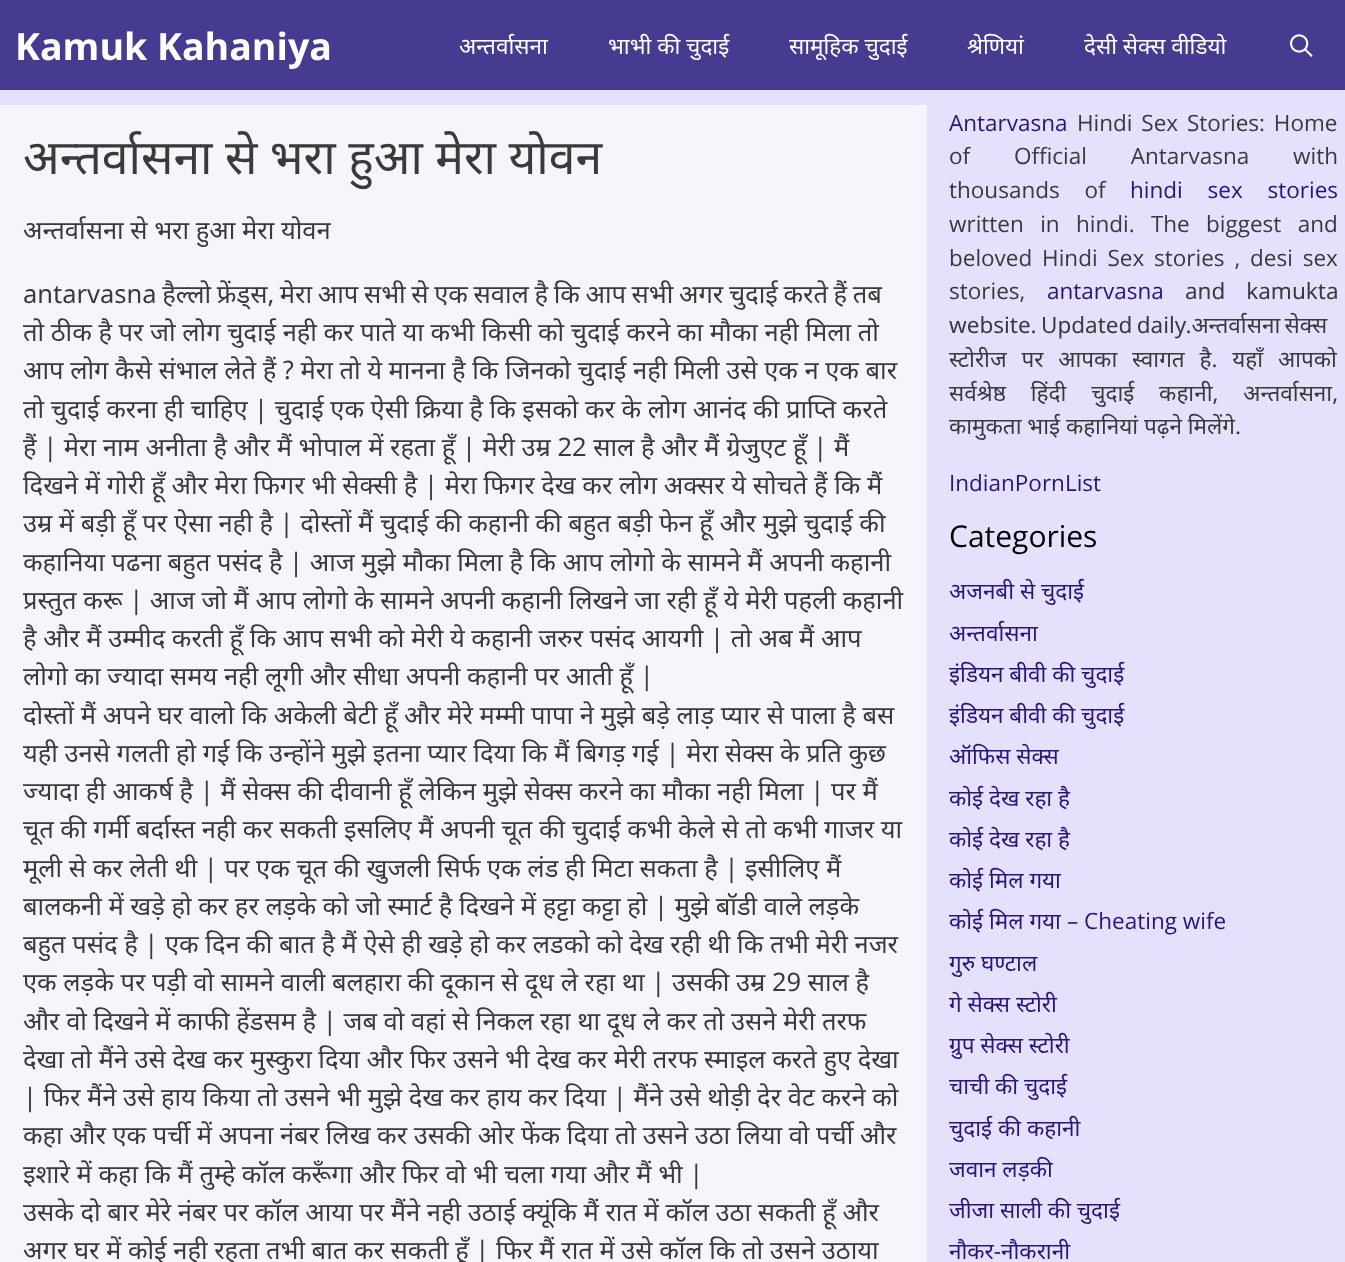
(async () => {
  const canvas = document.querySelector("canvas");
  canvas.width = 1345;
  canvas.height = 1262;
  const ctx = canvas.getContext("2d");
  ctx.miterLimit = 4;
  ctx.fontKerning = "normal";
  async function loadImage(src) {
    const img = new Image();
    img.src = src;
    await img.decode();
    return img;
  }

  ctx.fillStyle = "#e4e1fc";
  ctx.fillRect(0, 0, 1345, 1262);
  ctx.fillStyle = "#453b91";
  ctx.fillRect(0, 0, 1345, 90);
  ctx.drawImage(await loadImage("img/1.png"), 1290, 34, 23, 23);
  ctx.fillStyle = "#f6f5fc";
  ctx.fillRect(0, 105, 927, 1157);
  ctx.font = "bold 37.5px Open Sans";
  ctx.fillStyle = "#ffffff";
  ctx.fillText("Kamuk Kahaniya", 15, 60);
  ctx.font = "22.5px Noto Sans";
  for (const [text, x, y] of [
    ["अन्तर्वासना", 459, 54],
    ["भाभी की चुदाई", 608, 54],
    ["सामूहिक चुदाई", 789, 54],
    ["श्रेणियां", 967, 54],
    ["देसी सेक्स वीडियो", 1084, 54],
  ]) {
    ctx.fillText(text, x, y);
  }
  ctx.font = "48px Noto Sans";
  ctx.fillStyle = "#3a3a3a";
  ctx.fillText("अन्तर्वासना से भरा हुआ मेरा योवन", 23, 174);
  ctx.font = "25.5px Noto Sans";
  ctx.fillText("अन्तर्वासना से भरा हुआ मेरा योवन", 23, 239);
  ctx.wordSpacing = "-1px";
  ctx.fillText("antarvasna हैल्लो फ्रेंड्स, मेरा आप सभी से एक सवाल है कि आप सभी अगर चुदाई करते हैं तब", 23, 303);
  ctx.wordSpacing = "0px";
  for (const [text, x, y] of [
    ["तो ठीक है पर जो लोग चुदाई नही कर पाते या कभी किसी को चुदाई करने का मौका नही मिला तो", 23, 341],
    ["आप लोग कैसे संभाल लेते हैं ? मेरा तो ये मानना है कि जिनको चुदाई नही मिली उसे एक न एक बार", 23, 379],
    ["तो चुदाई करना ही चाहिए | चुदाई एक ऐसी क्रिया है कि इसको कर के लोग आनंद की प्राप्ति करते", 23, 418],
    ["हैं | मेरा नाम अनीता है और मैं भोपाल में रहता हूँ | मेरी उम्र 22 साल है और मैं ग्रेजुएट हूँ | मैं", 23, 456],
    ["दिखने में गोरी हूँ और मेरा फिगर भी सेक्सी है | मेरा फिगर देख कर लोग अक्सर ये सोचते हैं कि मैं", 23, 494],
    ["उम्र में बड़ी हूँ पर ऐसा नही है | दोस्तों मैं चुदाई की कहानी की बहुत बड़ी फेन हूँ और मुझे चुदाई की", 23, 532],
    ["कहानिया पढना बहुत पसंद है | आज मुझे मौका मिला है कि आप लोगो के सामने मैं अपनी कहानी", 23, 571],
    ["प्रस्तुत करू | आज जो मैं आप लोगो के सामने अपनी कहानी लिखने जा रही हूँ ये मेरी पहली कहानी", 23, 609],
    ["है और मैं उम्मीद करती हूँ कि आप सभी को मेरी ये कहानी जरुर पसंद आयगी | तो अब मैं आप", 23, 647],
    ["लोगो का ज्यादा समय नही लूगी और सीधा अपनी कहानी पर आती हूँ |", 23, 685],
    ["दोस्तों मैं अपने घर वालो कि अकेली बेटी हूँ और मेरे मम्मी पापा ने मुझे बड़े लाड़ प्यार से पाला है बस", 23, 724],
    ["यही उनसे गलती हो गई कि उन्होंने मुझे इतना प्यार दिया कि मैं बिगड़ गई | मेरा सेक्स के प्रति कुछ", 23, 762],
    ["ज्यादा ही आकर्ष है | मैं सेक्स की दीवानी हूँ लेकिन मुझे सेक्स करने का मौका नही मिला | पर मैं", 23, 800],
    ["चूत की गर्मी बर्दास्त नही कर सकती इसलिए मैं अपनी चूत की चुदाई कभी केले से तो कभी गाजर या", 23, 838],
    ["मूली से कर लेती थी | पर एक चूत की खुजली सिर्फ एक लंड ही मिटा सकता है | इसीलिए मैं", 23, 877],
    ["बालकनी में खड़े हो कर हर लड़के को जो स्मार्ट है दिखने में हट्टा कट्टा हो | मुझे बॉडी वाले लड़के", 23, 915],
    ["बहुत पसंद है | एक दिन की बात है मैं ऐसे ही खड़े हो कर लडको को देख रही थी कि तभी मेरी नजर", 23, 953],
    ["एक लड़के पर पड़ी वो सामने वाली बलहारा की दूकान से दूध ले रहा था | उसकी उम्र 29 साल है", 23, 991],
    ["और वो दिखने में काफी हेंडसम है | जब वो वहां से निकल रहा था दूध ले कर तो उसने मेरी तरफ", 23, 1030],
    ["देखा तो मैंने उसे देख कर मुस्कुरा दिया और फिर उसने भी देख कर मेरी तरफ स्माइल करते हुए देखा", 23, 1068],
    ["| फिर मैंने उसे हाय किया तो उसने भी मुझे देख कर हाय कर दिया | मैंने उसे थोड़ी देर वेट करने को", 23, 1106],
    ["कहा और एक पर्ची में अपना नंबर लिख कर उसकी ओर फेंक दिया तो उसने उठा लिया वो पर्ची और", 23, 1144],
    ["इशारे में कहा कि मैं तुम्हे कॉल करूँगा और फिर वो भी चला गया और मैं भी |", 23, 1183],
    ["उसके दो बार मेरे नंबर पर कॉल आया पर मैंने नही उठाई क्यूंकि मैं रात में कॉल उठा सकती हूँ और", 23, 1221],
    ["अगर घर में कोई नही रहता तभी बात कर सकती हूँ | फिर मैं रात में उसे कॉल कि तो उसने उठाया", 23, 1259],
  ]) {
    ctx.fillText(text, x, y);
  }
  ctx.font = "22.5px Open Sans";
  ctx.fillStyle = "#2d137a";
  ctx.fillText("Antarvasna", 949, 131);
  ctx.wordSpacing = "3px";
  ctx.fillStyle = "#3a3a3a";
  ctx.fillText("Hindi Sex Stories: Home", 1077, 131);
  ctx.wordSpacing = "38px";
  ctx.fillText("of Official Antarvasna with", 949, 164);
  ctx.wordSpacing = "19px";
  ctx.fillText("thousands of", 949, 198);
  ctx.fillStyle = "#2d137a";
  ctx.fillText("hindi sex stories", 1130, 198);
  ctx.wordSpacing = "10.5px";
  ctx.fillStyle = "#3a3a3a";
  ctx.fillText("written in hindi. The biggest and", 949, 232);
  ctx.wordSpacing = "4px";
  ctx.fillText("beloved Hindi Sex stories , desi sex", 949, 266);
  ctx.wordSpacing = "0px";
  ctx.fillText("stories,", 949, 299);
  ctx.fillStyle = "#2d137a";
  ctx.fillText("antarvasna", 1047, 299);
  ctx.wordSpacing = "15px";
  ctx.font = "22.5px Noto Sans";
  ctx.fillStyle = "#3a3a3a";
  ctx.fillText("and kamukta", 1185, 299);
  ctx.wordSpacing = "-1.5px";
  ctx.fillText("website. Updated daily.अन्तर्वासना सेक्स", 949, 333);
  ctx.wordSpacing = "9px";
  ctx.fillText("स्टोरीज पर आपका स्वागत है. यहाँ आपको", 949, 367);
  ctx.wordSpacing = "19px";
  ctx.fillText("सर्वश्रेष्ठ हिंदी चुदाई कहानी, अन्तर्वासना,", 949, 401);
  ctx.wordSpacing = "0px";
  ctx.fillText("कामुकता भाई कहानियां पढ़ने मिलेंगे.", 949, 434);
  ctx.font = "22.5px Open Sans";
  ctx.fillStyle = "#2d137a";
  ctx.fillText("IndianPornList", 949, 491);
  ctx.font = "30px Open Sans";
  ctx.fillStyle = "#000000";
  ctx.fillText("Categories", 949, 547);
  ctx.font = "22.5px Noto Sans";
  ctx.fillStyle = "#2d137a";
  for (const [text, x, y] of [
    ["अजनबी से चुदाई", 949, 599],
    ["अन्तर्वासना", 949, 641],
    ["इंडियन बीवी की चुदाई", 949, 682],
    ["इंडियन बीवी की चुदाई", 949, 723],
    ["ऑफिस सेक्स", 949, 764],
    ["कोई देख रहा है", 949, 806],
    ["कोई देख रहा है", 949, 847],
    ["कोई मिल गया", 949, 888],
    ["कोई मिल गया", 949, 929],
  ]) {
    ctx.fillText(text, x, y);
  }
  ctx.font = "22.5px Open Sans";
  ctx.fillText("– Cheating wife", 1067, 929);
  ctx.font = "22.5px Noto Sans";
  for (const [text, x, y] of [
    ["गुरु घण्टाल", 949, 971],
    ["गे सेक्स स्टोरी", 949, 1012],
    ["ग्रुप सेक्स स्टोरी", 949, 1053],
    ["चाची की चुदाई", 949, 1094],
    ["चुदाई की कहानी", 949, 1136],
    ["जवान लड़की", 949, 1177],
    ["जीजा साली की चुदाई", 949, 1218],
    ["नौकर-नौकरानी", 949, 1259],
  ]) {
    ctx.fillText(text, x, y);
  }
})();
